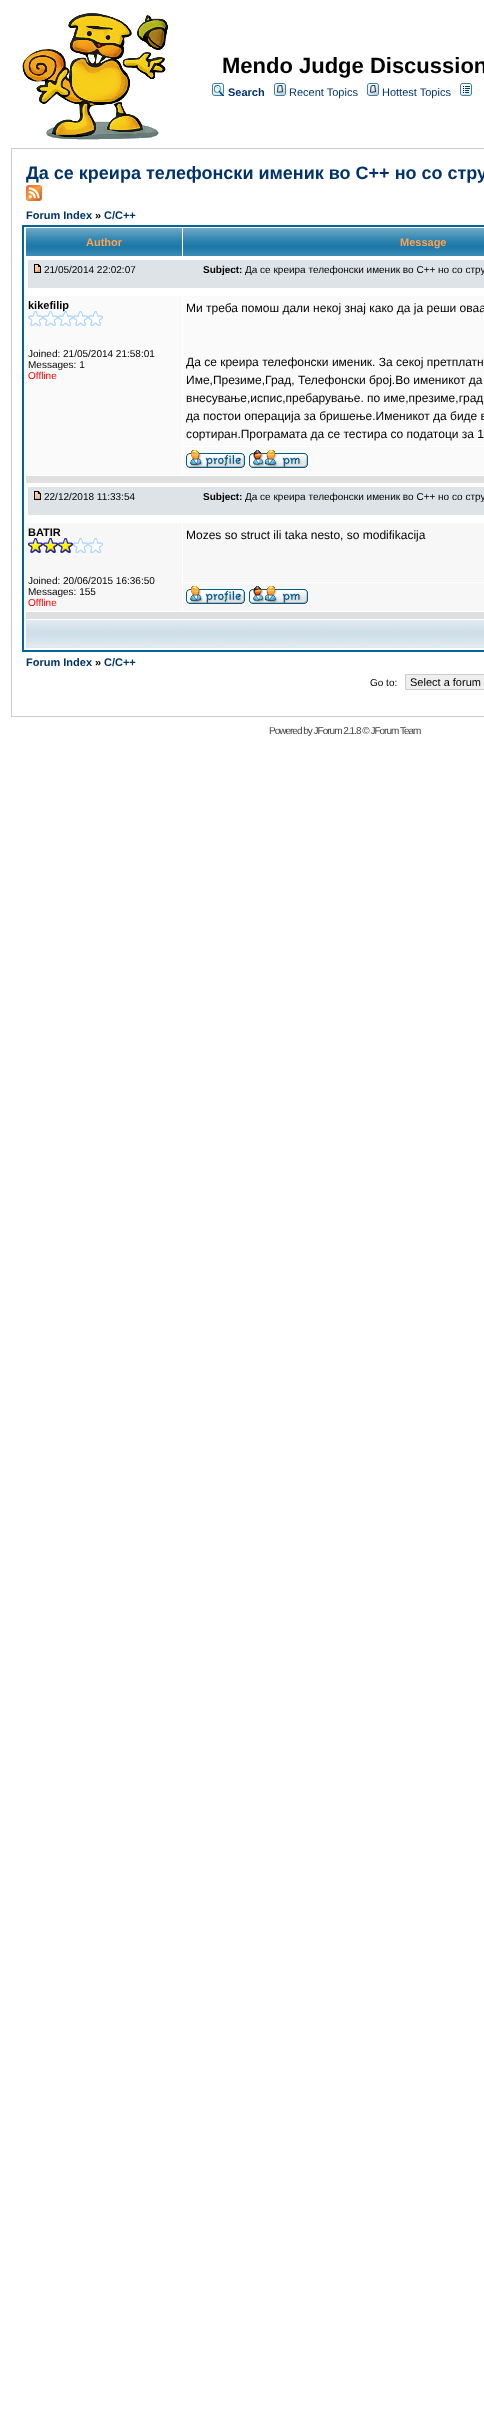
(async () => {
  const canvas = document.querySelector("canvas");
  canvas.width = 484;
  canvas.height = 2434;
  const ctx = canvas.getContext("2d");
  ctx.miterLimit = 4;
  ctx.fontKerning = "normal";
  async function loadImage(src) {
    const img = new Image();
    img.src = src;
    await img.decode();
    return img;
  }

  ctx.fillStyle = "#ffffff";
  ctx.fillRect(0, 0, 484, 2434);
  ctx.drawImage(await loadImage("img/1.png"), 22, 13, 146, 127);
  ctx.drawImage(await loadImage("img/2.png"), 212, 83, 12, 13);
  ctx.drawImage(await loadImage("img/3.png"), 274, 83, 12, 13);
  ctx.drawImage(await loadImage("img/3.png"), 367, 83, 12, 13);
  ctx.drawImage(await loadImage("img/4.png"), 460, 83, 12, 13);
  ctx.strokeStyle = "#cccccc";
  ctx.strokeRect(11.5, 148.5, 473, 568);
  ctx.drawImage(await loadImage("img/5.png"), 26, 185, 16, 16);
  ctx.strokeStyle = "#006699";
  ctx.lineWidth = 2;
  ctx.strokeRect(23, 226, 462, 425);
  ctx.drawImage(await loadImage("img/6.png"), 26, 228, 156, 28);
  ctx.drawImage(await loadImage("img/7.png"), 183, 228, 301, 28);
  ctx.fillStyle = "#dee3e7";
  ctx.fillRect(28, 260, 456, 28);
  ctx.drawImage(await loadImage("img/8.png"), 34, 264, 7, 9);
  ctx.fillStyle = "#fafafa";
  ctx.fillRect(25, 296, 157, 179);
  ctx.drawImage(await loadImage("img/9.png"), 73, 311, 15, 15);
  ctx.drawImage(await loadImage("img/9.png"), 88, 311, 15, 15);
  ctx.fillRect(183, 296, 301, 150);
  ctx.fillRect(183, 447, 301, 28);
  ctx.drawImage(await loadImage("img/11.png"), 186, 450, 59, 18);
  ctx.drawImage(await loadImage("img/12.png"), 249, 450, 59, 18);
  ctx.fillStyle = "#dfdfdf";
  ctx.fillRect(26, 476, 458, 7);
  ctx.fillStyle = "#dee3e7";
  ctx.fillRect(28, 487, 456, 28);
  ctx.drawImage(await loadImage("img/8.png"), 34, 491, 7, 9);
  ctx.fillStyle = "#f7f7f8";
  ctx.fillRect(25, 523, 157, 88);
  ctx.drawImage(await loadImage("img/13.png"), 28, 538, 15, 15);
  ctx.drawImage(await loadImage("img/13.png"), 43, 538, 15, 15);
  ctx.drawImage(await loadImage("img/13.png"), 58, 538, 15, 15);
  ctx.drawImage(await loadImage("img/14.png"), 73, 538, 15, 15);
  ctx.drawImage(await loadImage("img/14.png"), 88, 538, 15, 15);
  ctx.fillRect(183, 523, 301, 59);
  ctx.fillRect(183, 583, 301, 28);
  ctx.drawImage(await loadImage("img/15.png"), 186, 586, 59, 18);
  ctx.drawImage(await loadImage("img/16.png"), 249, 586, 59, 18);
  ctx.fillStyle = "#dfdfdf";
  ctx.fillRect(26, 612, 458, 7);
  ctx.drawImage(await loadImage("img/17.png"), 26, 620, 458, 28);
  ctx.fillStyle = "#efefef";
  ctx.beginPath();
  ctx.rect(405.5, 674.5, 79, 15);
  ctx.fill();
  ctx.strokeStyle = "#cccccc";
  ctx.lineWidth = 1;
  ctx.stroke();
  ctx.font = "bold 22px Liberation Sans";
  ctx.fillStyle = "#000000";
  ctx.fillText("Mendo Judge Discussion", 222, 73);
  ctx.font = "bold 11px Liberation Sans";
  ctx.fillStyle = "#01336b";
  ctx.fillText("Search", 228, 96);
  ctx.font = "11px Liberation Sans";
  ctx.fillText("Recent Topics", 289, 96);
  ctx.fillText("Hottest Topics", 382, 96);
  ctx.font = "bold 18px Liberation Sans";
  ctx.fillText("Да се креира телефонски именик во C++ но со стру", 26, 179);
  ctx.font = "bold 11px Liberation Sans";
  ctx.fillText("Forum Index", 26, 219);
  ctx.fillStyle = "#000000";
  ctx.fillText("»", 95, 219);
  ctx.fillStyle = "#01336b";
  ctx.fillText("C/C++", 104, 219);
  ctx.fillStyle = "#ffa34f";
  ctx.fillText("Author", 86, 246);
  ctx.fillText("Message", 400, 246);
  ctx.font = "10px Liberation Sans";
  ctx.fillStyle = "#000000";
  ctx.fillText("21/05/2014 22:02:07", 44, 273);
  ctx.font = "bold 10px Liberation Sans";
  ctx.fillText("Subject:", 203, 273);
  ctx.font = "10px Liberation Sans";
  ctx.fillText("Да се креира телефонски именик во C++ но со стру", 245, 273);
  ctx.font = "bold 11px Liberation Sans";
  ctx.fillText("kikefilip", 28, 309);
  ctx.drawImage(await loadImage("img/9.png"), 28, 311, 15, 15);
  ctx.drawImage(await loadImage("img/9.png"), 43, 311, 15, 15);
  ctx.drawImage(await loadImage("img/10.png"), 58, 311, 15, 15);
  ctx.font = "10px Liberation Sans";
  ctx.fillText("Joined: 21/05/2014 21:58:01", 28, 357);
  ctx.fillText("Messages: 1", 28, 368);
  ctx.fillStyle = "#ff0000";
  ctx.fillText("Offline", 28, 379);
  ctx.font = "12px Liberation Sans";
  ctx.fillStyle = "#000000";
  for (const [text, x, y] of [
    ["Ми треба помош дали некој знај како да ја реши оваа", 186, 312],
    ["Да се креира телефонски именик. За секој претплатн", 186, 366],
    ["Име,Презиме,Град, Телефонски број.Во именикот да", 186, 384],
    ["внесување,испис,пребарување. по име,презиме,град", 186, 402],
    ["да постои операција за бришење.Именикот да биде в", 186, 420],
    ["сортиран.Програмата да се тестира со податоци за 1", 186, 438],
  ]) {
    ctx.fillText(text, x, y);
  }
  ctx.font = "10px Liberation Sans";
  ctx.fillText("22/12/2018 11:33:54", 44, 500);
  ctx.font = "bold 10px Liberation Sans";
  ctx.fillText("Subject:", 203, 500);
  ctx.font = "10px Liberation Sans";
  ctx.fillText("Да се креира телефонски именик во C++ но со стру", 245, 500);
  ctx.font = "bold 11px Liberation Sans";
  ctx.fillText("BATIR", 28, 536);
  ctx.font = "10px Liberation Sans";
  ctx.fillText("Joined: 20/06/2015 16:36:50", 28, 584);
  ctx.fillText("Messages: 155", 28, 595);
  ctx.fillStyle = "#ff0000";
  ctx.fillText("Offline", 28, 606);
  ctx.font = "12px Liberation Sans";
  ctx.fillStyle = "#000000";
  ctx.fillText("Mozes so struct ili taka nesto, so modifikacija", 186, 539);
  ctx.font = "bold 11px Liberation Sans";
  ctx.fillStyle = "#01336b";
  ctx.fillText("Forum Index", 26, 666);
  ctx.fillStyle = "#000000";
  ctx.fillText("»", 95, 666);
  ctx.fillStyle = "#01336b";
  ctx.fillText("C/C++", 104, 666);
  ctx.font = "10px Liberation Sans";
  ctx.fillStyle = "#000000";
  ctx.fillText("Go to:", 370, 686);
  ctx.font = "11px Liberation Sans";
  ctx.fillText("Select a forum", 410, 686);
  ctx.letterSpacing = "-1px";
  ctx.font = "10px Liberation Sans";
  ctx.fillStyle = "#444444";
  ctx.fillText("Powered by JForum 2.1.8 © JForum Team", 269, 734);
})();
